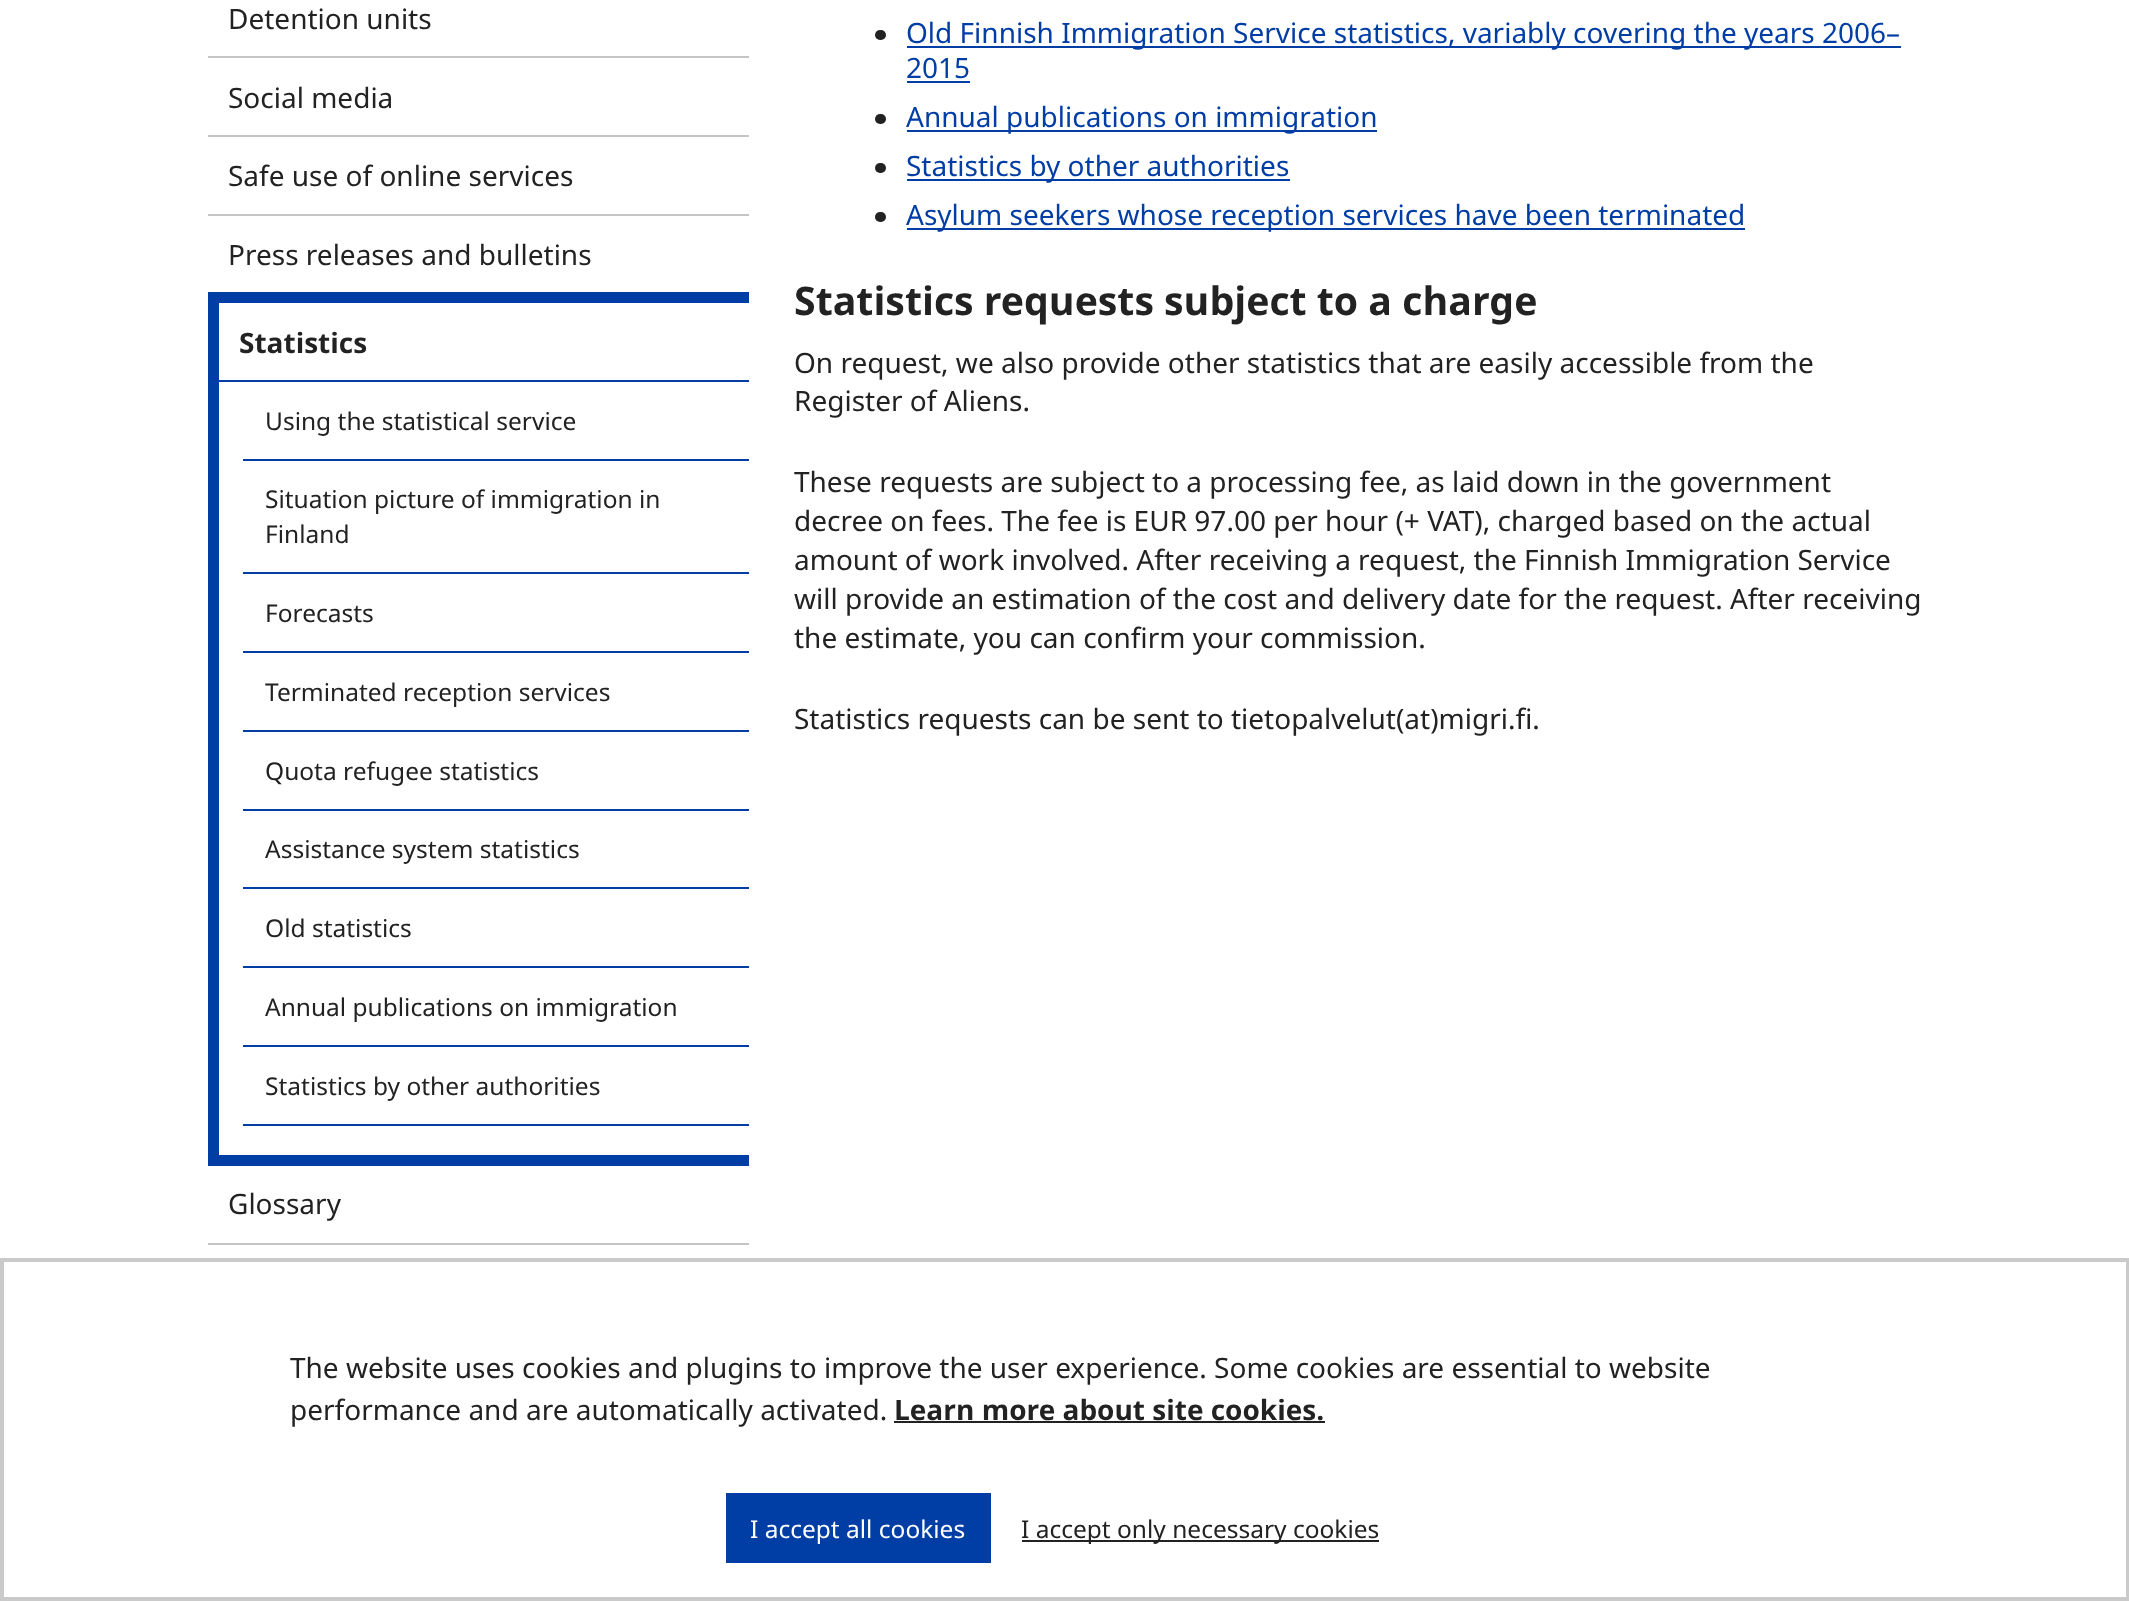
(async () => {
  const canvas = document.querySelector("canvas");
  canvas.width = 2129;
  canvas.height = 1601;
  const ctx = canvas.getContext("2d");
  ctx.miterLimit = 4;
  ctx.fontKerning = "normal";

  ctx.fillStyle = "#ffffff";
  ctx.fillRect(0, 0, 2129, 1601);
  for (const [x, y, w, h, color] of [
    [208, 56, 541, 2, "#c4c4c4"],
    [208, 135, 541, 2, "#c4c4c4"],
    [208, 214, 541, 2, "#c4c4c4"],
    [219, 292, 530, 11, "#003da5"],
    [219, 1155, 530, 11, "#003da5"],
    [208, 292, 11, 874, "#003da5"],
    [219, 380, 530, 2, "#003da5"],
    [243, 459, 506, 2, "#003da5"],
    [243, 572, 506, 2, "#003da5"],
    [243, 651, 506, 2, "#003da5"],
    [243, 730, 506, 2, "#003da5"],
    [243, 809, 506, 2, "#003da5"],
    [243, 887, 506, 2, "#003da5"],
    [243, 966, 506, 2, "#003da5"],
    [243, 1045, 506, 2, "#003da5"],
    [243, 1124, 506, 2, "#003da5"],
    [208, 1243, 541, 2, "#c4c4c4"],
  ]) {
    ctx.fillStyle = color;
    ctx.fillRect(x, y, w, h);
  }
  ctx.fillStyle = "#222222";
  ctx.beginPath();
  ctx.roundRect(875, 30, 11, 10, 5);
  ctx.fill();
  ctx.fillStyle = "#003da5";
  ctx.fillRect(907, 46, 994, 2);
  ctx.fillRect(907, 81, 63, 2);
  ctx.fillStyle = "#222222";
  ctx.beginPath();
  ctx.roundRect(875, 114, 11, 10, 5);
  ctx.fill();
  ctx.fillStyle = "#003da5";
  ctx.fillRect(907, 130, 470, 2);
  ctx.fillStyle = "#222222";
  ctx.beginPath();
  ctx.roundRect(875, 163, 11, 10, 5);
  ctx.fill();
  ctx.fillStyle = "#003da5";
  ctx.fillRect(907, 179, 383, 2);
  ctx.fillStyle = "#222222";
  ctx.beginPath();
  ctx.roundRect(875, 212, 11, 10, 5);
  ctx.fill();
  ctx.fillStyle = "#003da5";
  ctx.fillRect(907, 228, 838, 2);
  ctx.strokeStyle = "#cacaca";
  ctx.lineWidth = 4;
  ctx.strokeRect(2, 1260, 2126, 339);
  for (const [x, y, w, h, color] of [
    [894, 1421, 431, 2, "#222222"],
    [726, 1493, 265, 70, "#003da5"],
    [1022, 1540, 357, 2, "#222222"],
  ]) {
    ctx.fillStyle = color;
    ctx.fillRect(x, y, w, h);
  }
  ctx.font = "28px Noto Sans";
  for (const [text, x, y] of [
    ["Detention units", 228, 29],
    ["Social media", 228, 108],
    ["Safe use of online services", 228, 186],
    ["Press releases and bulletins", 228, 265],
  ]) {
    ctx.fillText(text, x, y);
  }
  ctx.font = "bold 28px Noto Sans";
  ctx.fillText("Statistics", 239, 353);
  ctx.font = "24.5px Noto Sans";
  for (const [text, x, y] of [
    ["Using the statistical service", 265, 430],
    ["Situation picture of immigration in", 265, 508],
    ["Finland", 265, 543],
    ["Forecasts", 265, 622],
    ["Terminated reception services", 265, 701],
    ["Quota refugee statistics", 265, 780],
    ["Assistance system statistics", 265, 858],
    ["Old statistics", 265, 937],
    ["Annual publications on immigration", 265, 1016],
    ["Statistics by other authorities", 265, 1095],
  ]) {
    ctx.fillText(text, x, y);
  }
  ctx.font = "28px Noto Sans";
  ctx.fillText("Glossary", 228, 1214);
  ctx.fillStyle = "#003da5";
  for (const [text, x, y] of [
    ["Old Finnish Immigration Service statistics, variably covering the years 2006–", 906, 43],
    ["2015", 906, 78],
    ["Annual publications on immigration", 906, 127],
    ["Statistics by other authorities", 906, 176],
    ["Asylum seekers whose reception services have been terminated", 906, 225],
  ]) {
    ctx.fillText(text, x, y);
  }
  ctx.font = "bold 39.25px Noto Sans";
  ctx.fillStyle = "#222222";
  ctx.fillText("Statistics requests subject to a charge", 794, 315);
  ctx.font = "28px Noto Sans";
  for (const [text, x, y] of [
    ["On request, we also provide other statistics that are easily accessible from the", 794, 373],
    ["Register of Aliens.", 794, 411],
    ["These requests are subject to a processing fee, as laid down in the government", 794, 492],
    ["decree on fees. The fee is EUR 97.00 per hour (+ VAT), charged based on the actual", 794, 531],
    ["amount of work involved. After receiving a request, the Finnish Immigration Service", 794, 570],
    ["will provide an estimation of the cost and delivery date for the request. After receiving", 794, 609],
    ["the estimate, you can confirm your commission.", 794, 648],
    ["Statistics requests can be sent to tietopalvelut(at)migri.fi.", 794, 729],
    ["The website uses cookies and plugins to improve the user experience. Some cookies are essential to website", 290, 1378],
    ["performance and are automatically activated.", 290, 1420],
  ]) {
    ctx.fillText(text, x, y);
  }
  ctx.font = "bold 28px Noto Sans";
  ctx.fillText("Learn more about site cookies.", 894, 1420);
  ctx.font = "24.5px Noto Sans";
  ctx.fillStyle = "#ffffff";
  ctx.fillText("I accept all cookies", 750, 1538);
  ctx.fillStyle = "#222222";
  ctx.fillText("I accept only necessary cookies", 1021, 1538);
})();
